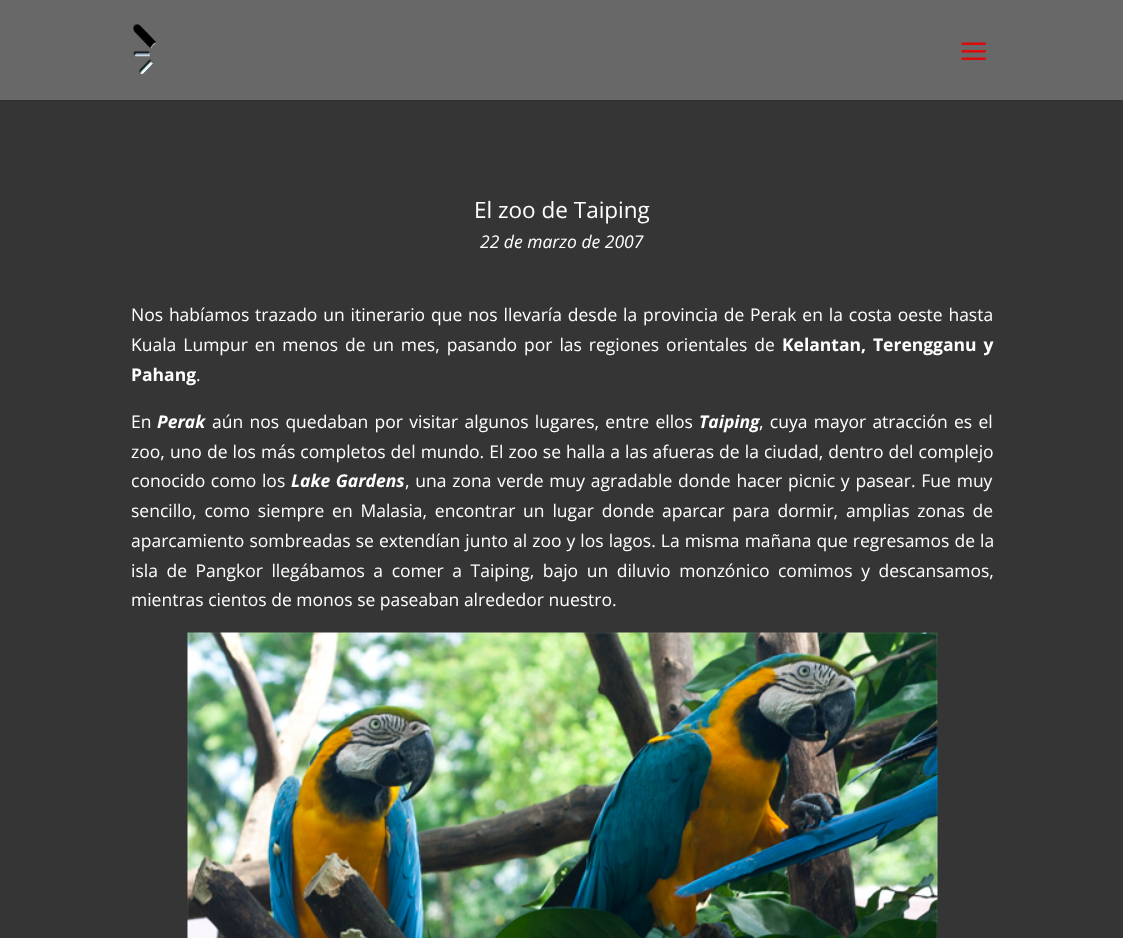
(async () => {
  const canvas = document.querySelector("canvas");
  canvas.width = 1123;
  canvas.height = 938;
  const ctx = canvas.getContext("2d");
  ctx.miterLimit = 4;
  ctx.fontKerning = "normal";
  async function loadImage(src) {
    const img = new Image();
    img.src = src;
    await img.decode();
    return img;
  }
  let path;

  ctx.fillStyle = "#353535";
  ctx.fillRect(0, 0, 1123, 938);
  ctx.fillStyle = "#303030";
  path = new Path2D("M0 100V101H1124V1V100Z");
  ctx.fill(path);
  ctx.fillStyle = "#686868";
  ctx.fillRect(0, 0, 1123, 100);
  ctx.drawImage(await loadImage("img/1.png"), 133, 23, 23, 51);
  ctx.drawImage(await loadImage("img/2.png"), 961, 42, 26, 18);
  ctx.drawImage(await loadImage("img/3.png"), 187, 632, 751, 306);
  ctx.font = "22.5px Open Sans";
  ctx.fillStyle = "#ffffff";
  ctx.fillText("El zoo de Taiping", 474, 218);
  ctx.font = "italic 17.5px Open Sans";
  ctx.fillText("22 de marzo de 2007", 480, 248);
  ctx.wordSpacing = "1.3px";
  ctx.font = "17.5px Open Sans";
  ctx.fillText("Nos habíamos trazado un itinerario que nos llevaría desde la provincia de Perak en la costa oeste hasta", 131, 321);
  ctx.wordSpacing = "2.4px";
  ctx.fillText("Kuala Lumpur en menos de un mes, pasando por las regiones orientales de", 131, 351);
  ctx.font = "bold 17.5px Open Sans";
  ctx.fillText("Kelantan, Terengganu y", 782, 351);
  ctx.wordSpacing = "0px";
  ctx.fillText("Pahang", 131, 381);
  ctx.font = "17.5px Open Sans";
  ctx.fillText(".", 196, 381);
  ctx.fillText("En", 131, 428);
  ctx.font = "italic bold 17.5px Open Sans";
  ctx.fillText("Perak", 157, 428);
  ctx.wordSpacing = "1.75px";
  ctx.font = "17.5px Open Sans";
  ctx.fillText("aún nos quedaban por visitar algunos lugares, entre ellos", 212, 428);
  ctx.wordSpacing = "0px";
  ctx.font = "italic bold 17.5px Open Sans";
  ctx.fillText("Taiping", 699, 428);
  ctx.wordSpacing = "1.75px";
  ctx.font = "17.5px Open Sans";
  ctx.fillText(", cuya mayor atracción es el", 759, 428);
  ctx.wordSpacing = "0.55px";
  ctx.fillText("zoo, uno de los más completos del mundo. El zoo se halla a las afueras de la ciudad, dentro del complejo", 131, 458);
  ctx.wordSpacing = "1px";
  ctx.fillText("conocido como los", 131, 487);
  ctx.font = "italic bold 17.5px Open Sans";
  ctx.fillText("Lake Gardens", 291, 487);
  ctx.wordSpacing = "1.25px";
  ctx.font = "17.5px Open Sans";
  ctx.fillText(", una zona verde muy agradable donde hacer picnic y pasear. Fue muy", 405, 487);
  ctx.wordSpacing = "3.25px";
  ctx.fillText("sencillo, como siempre en Malasia, encontrar un lugar donde aparcar para dormir, amplias zonas de", 131, 517);
  ctx.wordSpacing = "0.5px";
  ctx.fillText("aparcamiento sombreadas se extendían junto al zoo y los lagos. La misma mañana que regresamos de la", 131, 547);
  ctx.wordSpacing = "4px";
  ctx.fillText("isla de Pangkor llegábamos a comer a Taiping, bajo un diluvio monzónico comimos y descansamos,", 131, 577);
  ctx.wordSpacing = "0px";
  ctx.fillText("mientras cientos de monos se paseaban alrededor nuestro.", 131, 606);
})();
